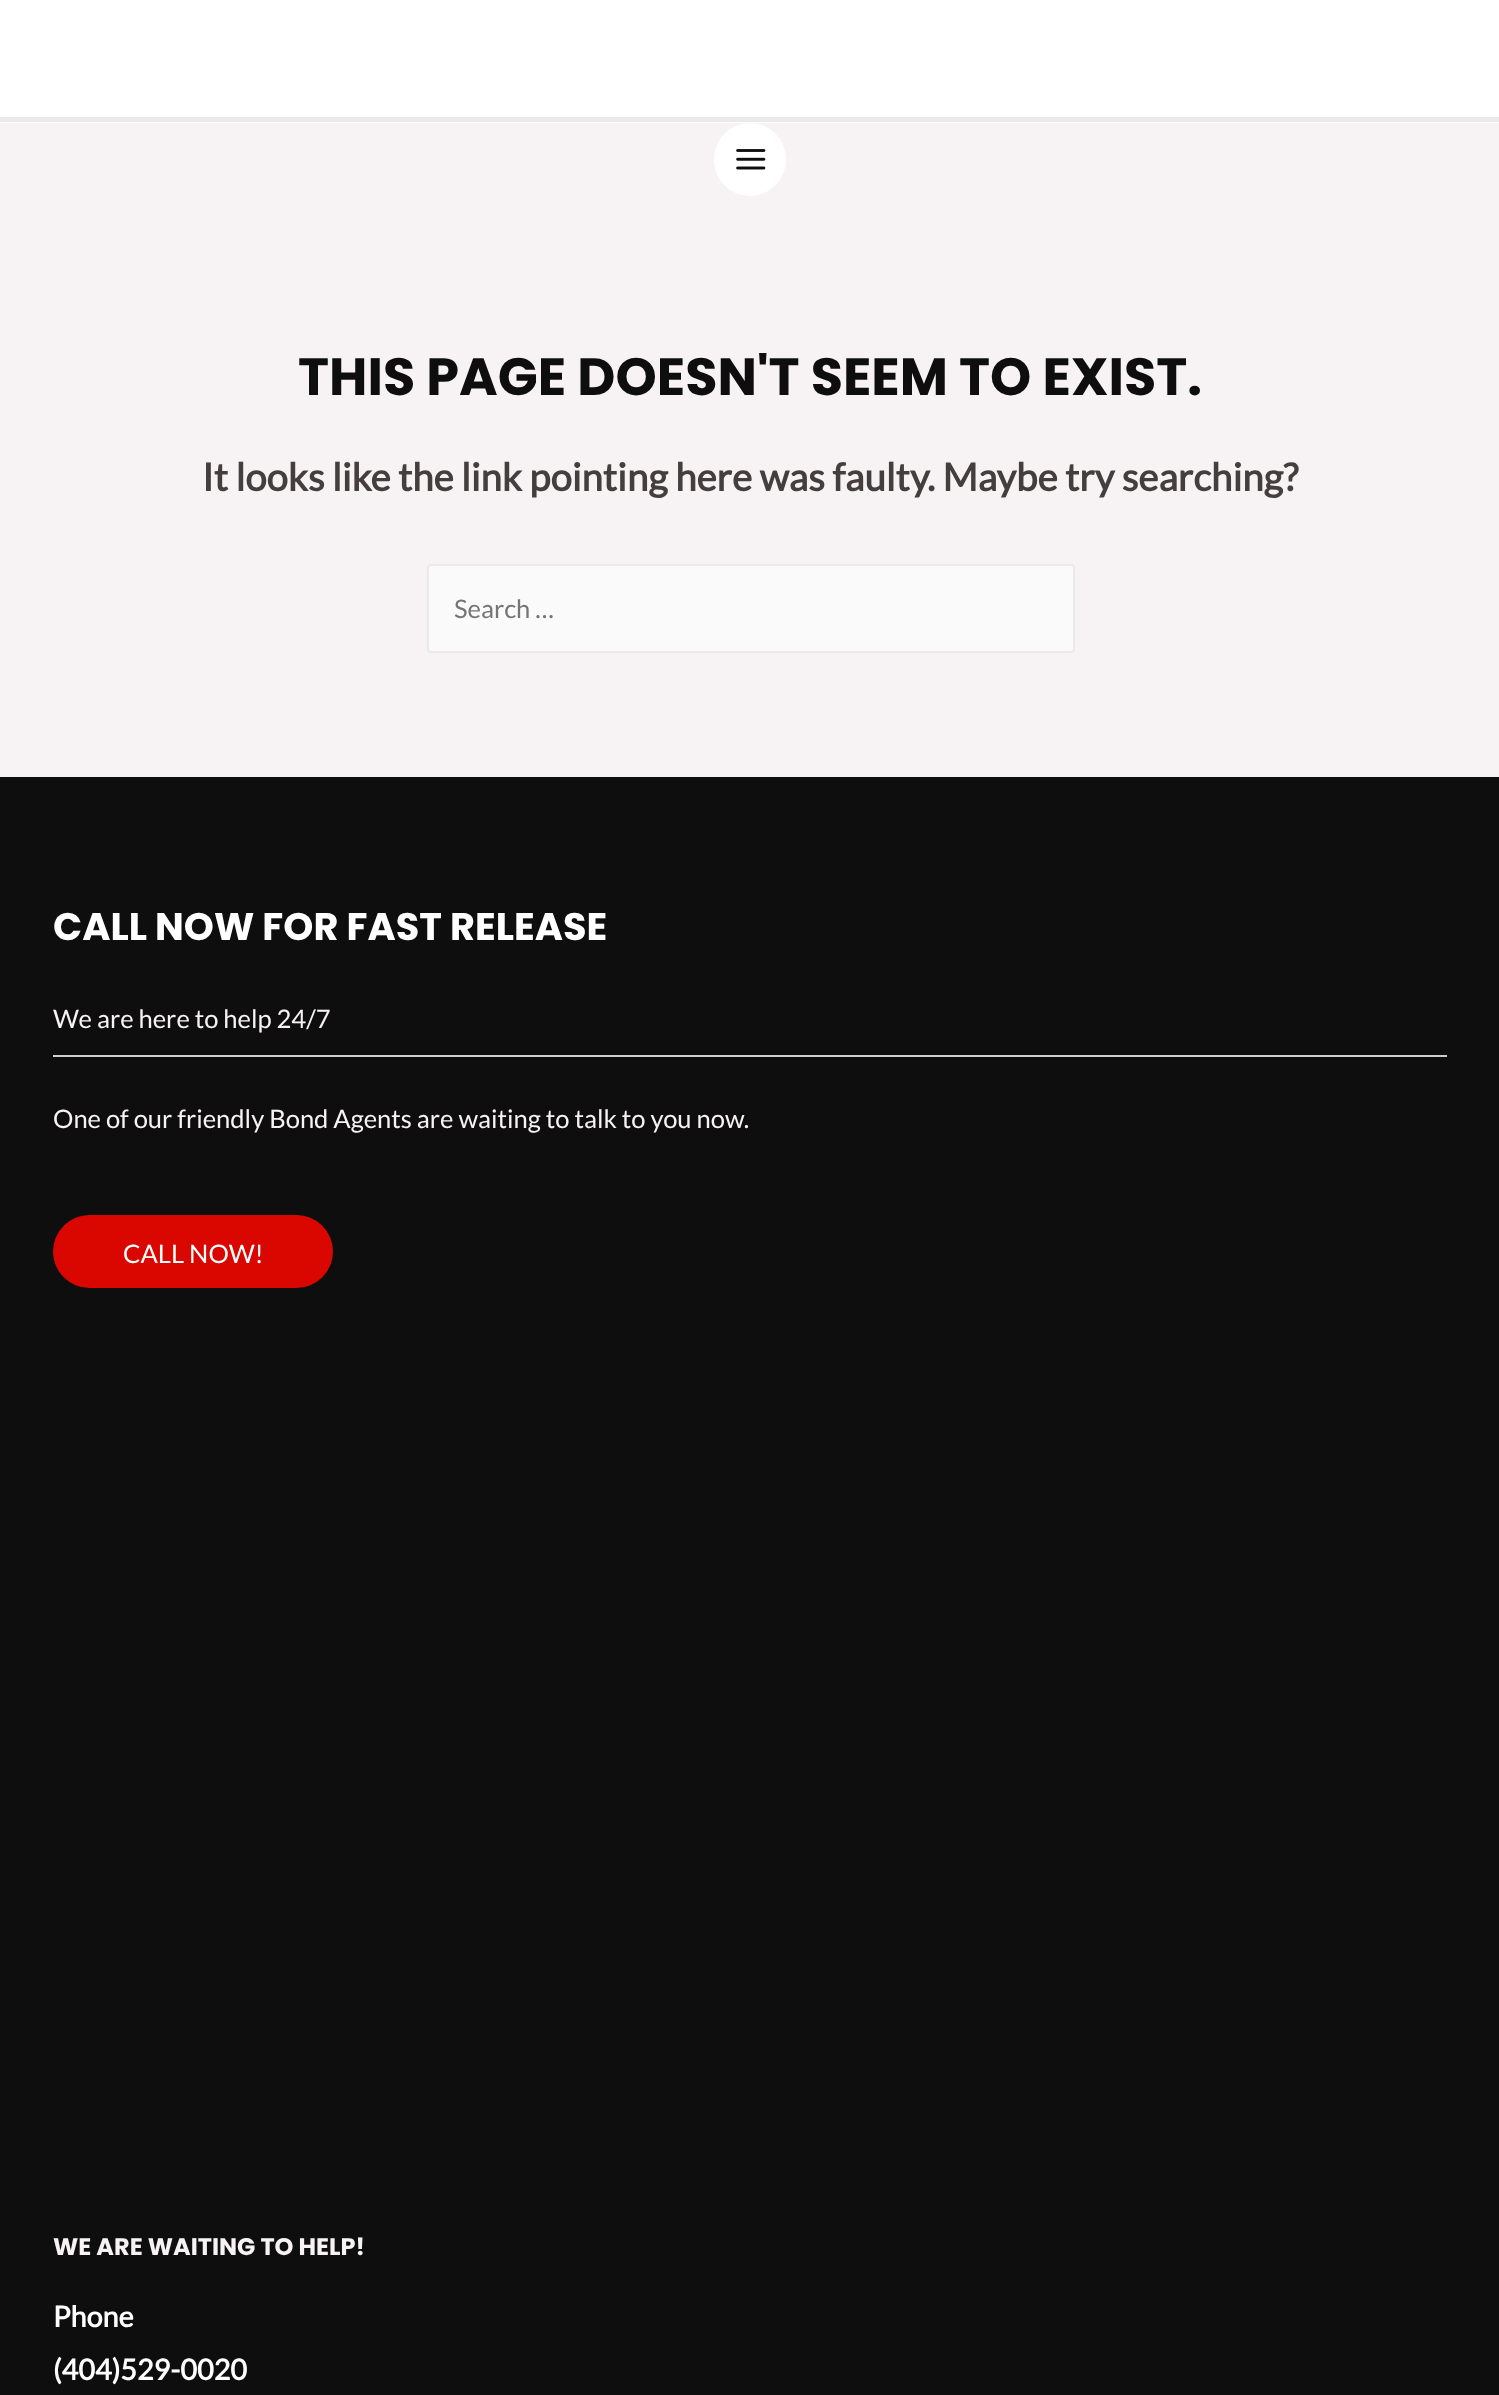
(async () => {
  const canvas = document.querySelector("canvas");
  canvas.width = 1499;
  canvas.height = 2395;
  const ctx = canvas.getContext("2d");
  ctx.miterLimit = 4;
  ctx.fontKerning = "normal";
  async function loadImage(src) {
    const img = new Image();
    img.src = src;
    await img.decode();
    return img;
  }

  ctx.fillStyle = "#f7f3f5";
  ctx.fillRect(0, 0, 1499, 2395);
  ctx.fillStyle = "#ffffff";
  ctx.fillRect(0, 0, 1499, 123);
  ctx.fillStyle = "#eaeaea";
  ctx.fillRect(0, 117, 1499, 5);
  ctx.fillStyle = "#ffffff";
  ctx.beginPath();
  ctx.roundRect(714, 123, 72, 73, 36);
  ctx.fill();
  ctx.drawImage(await loadImage("img/1.png"), 736, 149, 30, 21);
  ctx.fillStyle = "#fafafa";
  ctx.beginPath();
  ctx.roundRect(428, 565, 646, 87, 3);
  ctx.fill();
  ctx.strokeStyle = "#eaeaea";
  ctx.lineWidth = 2;
  ctx.stroke();
  ctx.fillStyle = "#0e0e0e";
  ctx.fillRect(0, 777, 1499, 1618);
  ctx.fillStyle = "#cccccc";
  ctx.fillRect(53, 1055, 1394, 2);
  ctx.fillStyle = "#d90700";
  ctx.beginPath();
  ctx.roundRect(53, 1215, 280, 73, 36.5);
  ctx.fill();
  ctx.font = "bold 52.5px Poppins";
  ctx.fillStyle = "#0e0e0e";
  ctx.fillText("THIS PAGE DOESN'T SEEM TO EXIST.", 298, 395);
  ctx.font = "bold 38.3px Lato";
  ctx.fillStyle = "#453e3e";
  ctx.fillText("It looks like the link pointing here was faulty. Maybe try searching?", 202, 491);
  ctx.font = "25.55px Lato";
  ctx.fillStyle = "#757575";
  ctx.fillText("Search …", 454, 618);
  ctx.font = "bold 38.3px Poppins";
  ctx.fillStyle = "#ffffff";
  ctx.fillText("CALL NOW FOR FAST RELEASE", 53, 940);
  ctx.font = "25.55px Lato";
  ctx.fillStyle = "#f7f3f5";
  ctx.fillText("We are here to help 24/7", 53, 1028);
  ctx.fillText("One of our friendly Bond Agents are waiting to talk to you now.", 53, 1128);
  ctx.fillStyle = "#ffffff";
  ctx.fillText("CALL NOW!", 123, 1263);
  ctx.font = "bold 24px Poppins";
  ctx.fillStyle = "#f7f3f5";
  ctx.fillText("WE ARE WAITING TO HELP!", 53, 2255);
  ctx.font = "bold 28.75px Lato";
  ctx.fillStyle = "#ffffff";
  ctx.fillText("Phone", 53, 2327);
  ctx.fillText("(404)529-0020", 53, 2380);
})();
